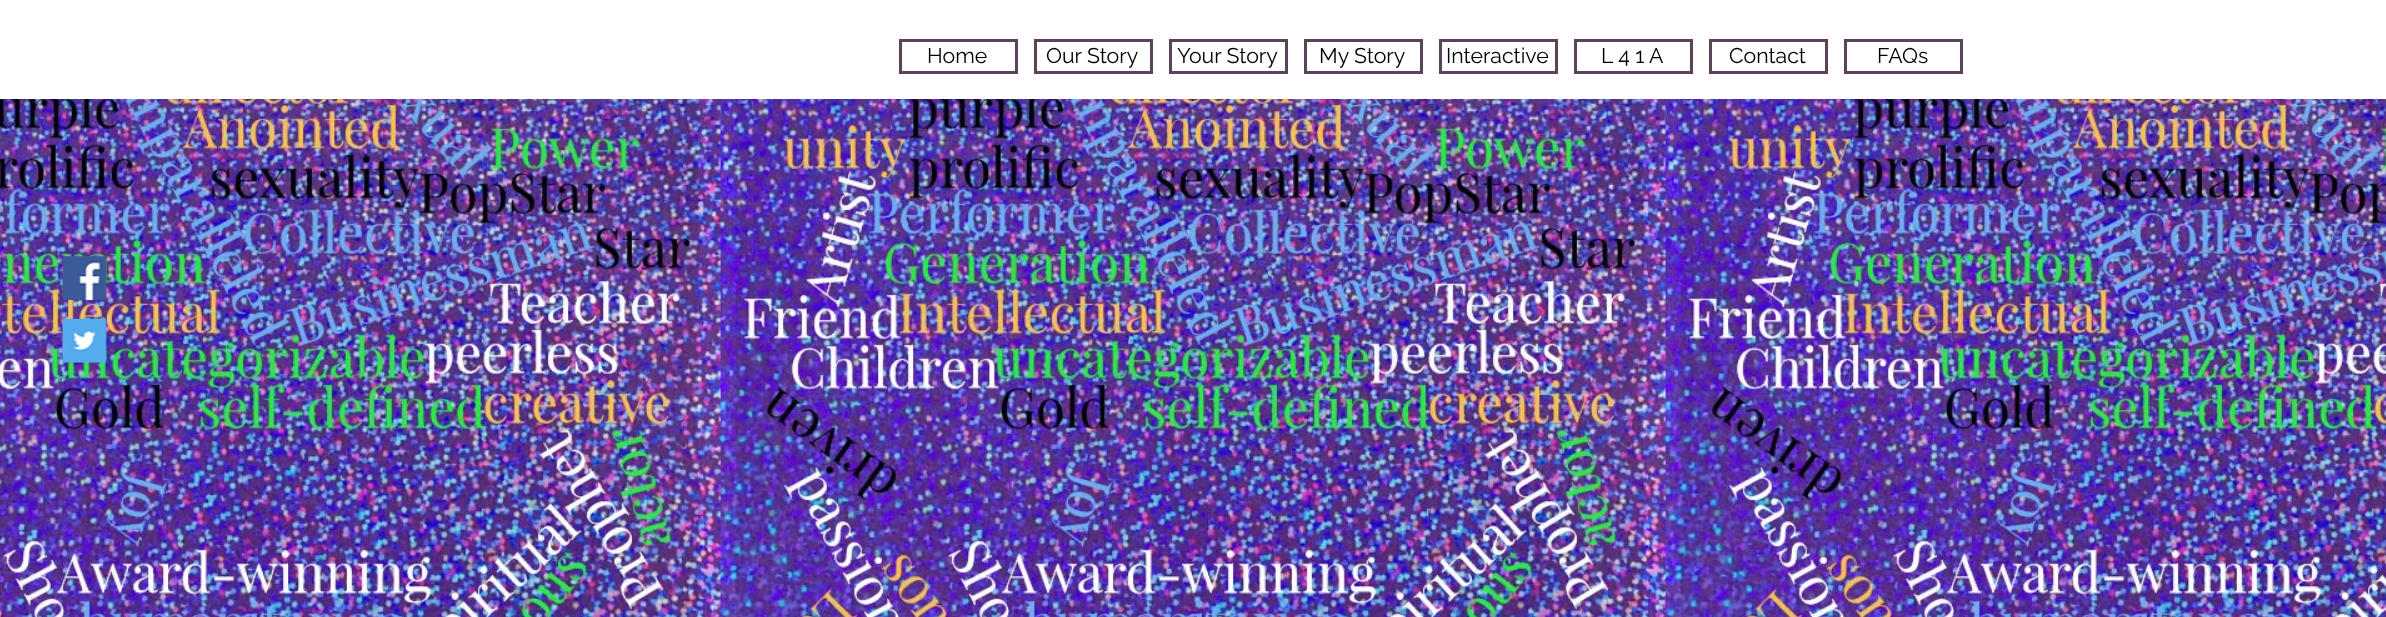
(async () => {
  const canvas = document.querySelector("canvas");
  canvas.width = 2386;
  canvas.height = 617;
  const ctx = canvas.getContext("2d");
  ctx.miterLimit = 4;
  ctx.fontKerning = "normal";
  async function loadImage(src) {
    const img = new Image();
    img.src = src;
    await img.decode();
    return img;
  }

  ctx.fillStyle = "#ffffff";
  ctx.fillRect(0, 0, 2386, 617);
  ctx.strokeStyle = "#5b4459";
  ctx.lineWidth = 3;
  ctx.strokeRect(900.5, 40.5, 116, 32);
  ctx.strokeRect(1035.5, 40.5, 116, 32);
  ctx.strokeRect(1170.5, 40.5, 116, 32);
  ctx.strokeRect(1305.5, 40.5, 116, 32);
  ctx.strokeRect(1440.5, 40.5, 116, 32);
  ctx.strokeRect(1575.5, 40.5, 116, 32);
  ctx.strokeRect(1710.5, 40.5, 116, 32);
  ctx.strokeRect(1845.5, 40.5, 116, 32);
  ctx.drawImage(await loadImage("img/1.png"), 0, 99, 2386, 518);
  ctx.drawImage(await loadImage("img/2.png"), 62, 256, 45, 44);
  ctx.drawImage(await loadImage("img/3.png"), 62, 318, 45, 45);
  ctx.font = "21.25px Raleway";
  ctx.fillStyle = "#000000";
  for (const [text, x, y] of [
    ["Home", 927, 63],
    ["Our Story", 1046, 63],
    ["Your Story", 1177, 63],
    ["My Story", 1319, 63],
    ["Interactive", 1446, 63],
    ["L 4 1 A", 1601, 63],
    ["Contact", 1729, 63],
    ["FAQs", 1877, 63],
  ]) {
    ctx.fillText(text, x, y);
  }
})();
